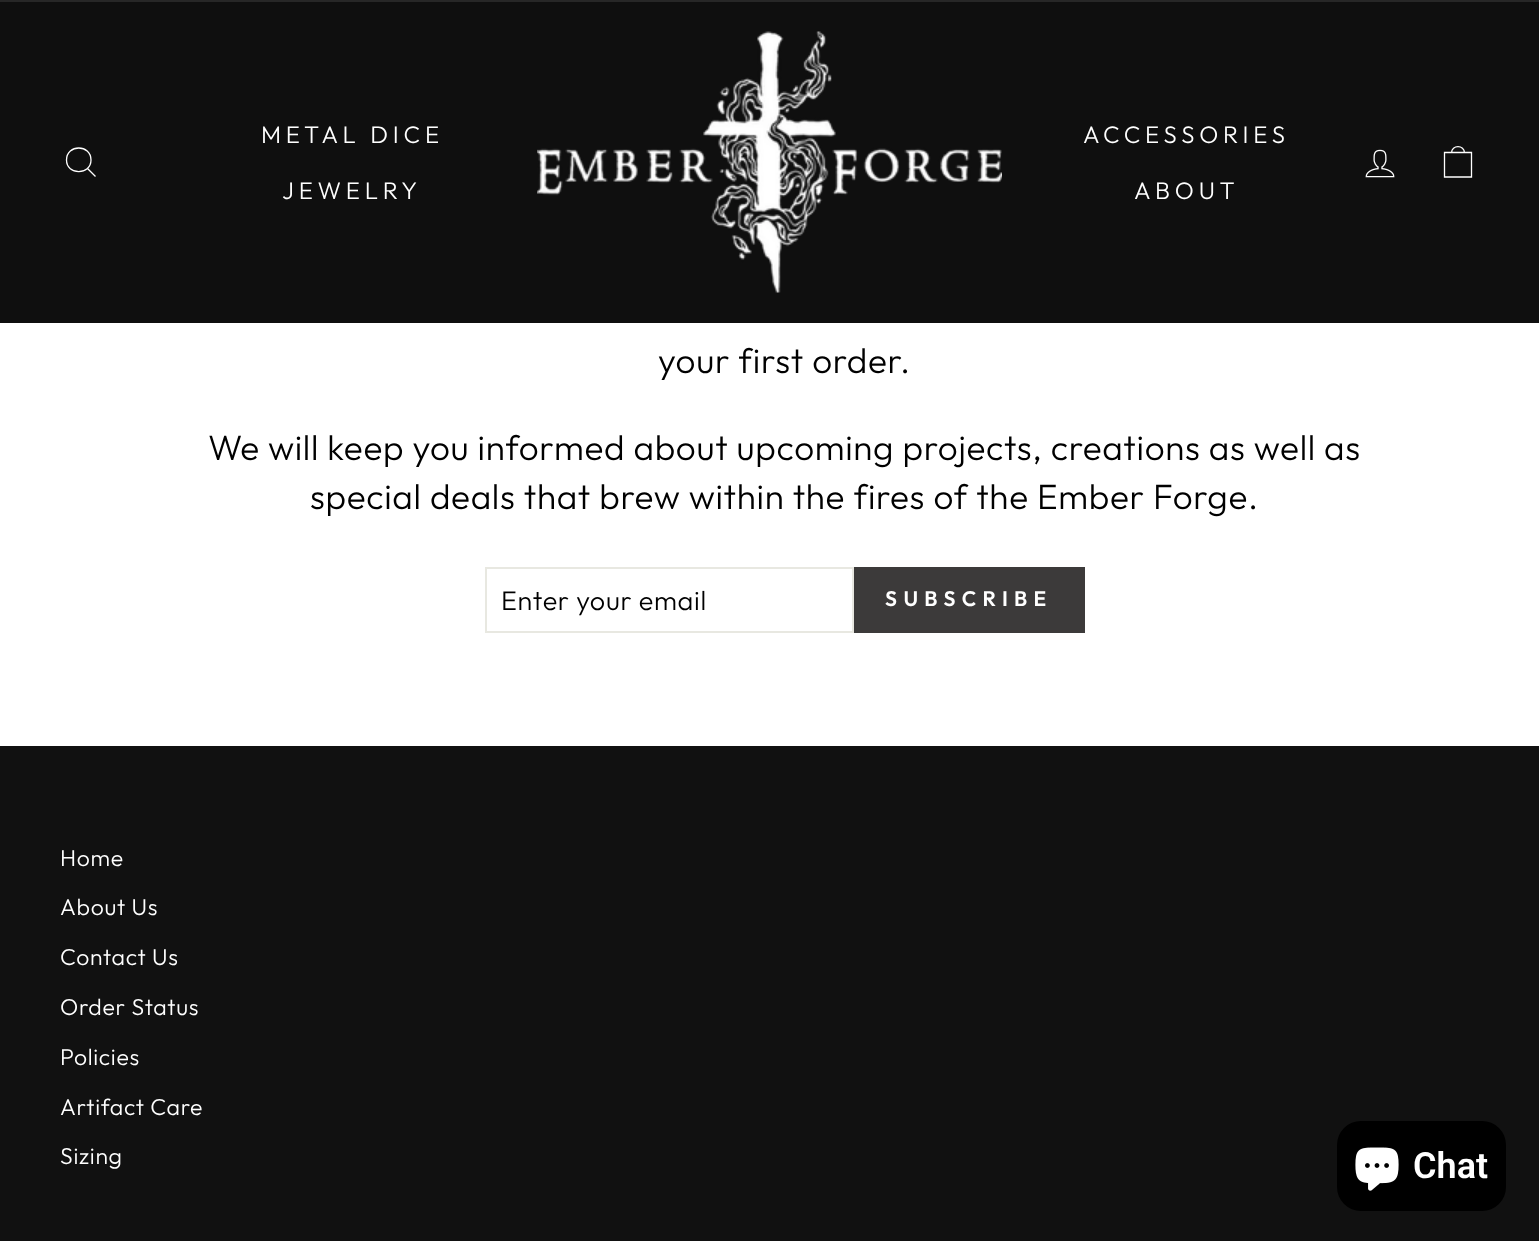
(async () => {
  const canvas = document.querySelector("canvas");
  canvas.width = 1539;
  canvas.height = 1241;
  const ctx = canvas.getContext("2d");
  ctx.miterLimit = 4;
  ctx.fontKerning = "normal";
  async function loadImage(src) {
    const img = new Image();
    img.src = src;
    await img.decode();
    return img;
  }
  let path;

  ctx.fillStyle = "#ffffff";
  ctx.fillRect(0, 0, 1539, 1241);
  ctx.fillStyle = "#0f0f0f";
  ctx.fillRect(0, 2, 1539, 321);
  ctx.fillStyle = "#272727";
  ctx.fillRect(0, 0, 1539, 2);
  path = new Path2D("M91 160C91 175.5 66.5 175.5 66.5 160C66.5 144 91 144 91 160ZM95.5 176.5L87.5 168.5");
  ctx.strokeStyle = "#ffffff";
  ctx.lineWidth = 1.3;
  ctx.stroke(path);
  ctx.drawImage(await loadImage("img/1.png"), 537, 31, 465, 262);
  ctx.drawImage(await loadImage("img/2.png"), 1365, 149, 30, 29);
  path = new Path2D("M1444.5 152.5H1471.5V177H1444.5ZM1451.5 153C1451.5 144.5 1464.5 144.5 1464.5 153");
  ctx.stroke(path);
  ctx.strokeStyle = "#e8e8e1";
  ctx.lineWidth = 2;
  ctx.strokeRect(486, 568, 367, 64);
  ctx.fillStyle = "#3c3a3a";
  ctx.fillRect(854, 567, 231, 66);
  ctx.fillStyle = "#111111";
  ctx.fillRect(0, 746, 1539, 495);
  ctx.fillStyle = "#000000";
  ctx.beginPath();
  ctx.roundRect(1337, 1121, 169, 90, 24);
  ctx.fill();
  ctx.drawImage(await loadImage("img/3.png"), 1355, 1147, 44, 44);
  ctx.letterSpacing = "4.75px";
  ctx.font = "300 24px Outfit";
  ctx.fillStyle = "#ffffff";
  for (const [text, x, y] of [
    ["METAL DICE", 261, 143],
    ["JEWELRY", 282, 199],
    ["ACCESSORIES", 1083, 143],
    ["ABOUT", 1134, 199],
  ]) {
    ctx.fillText(text, x, y);
  }
  ctx.letterSpacing = "0.68px";
  ctx.font = "300 35.1px Outfit";
  ctx.fillStyle = "#000000";
  for (const [text, x, y] of [
    ["your first order.", 658, 373],
    ["We will keep you informed about upcoming projects, creations as well as", 208, 460],
    ["special deals that brew within the fires of the Ember Forge.", 310, 509],
  ]) {
    ctx.fillText(text, x, y);
  }
  ctx.font = "300 27px Outfit";
  ctx.fillText("Enter your email", 501, 610);
  ctx.letterSpacing = "6.25px";
  ctx.font = "600 21px Outfit";
  ctx.fillStyle = "#ffffff";
  ctx.fillText("SUBSCRIBE", 885, 606);
  ctx.letterSpacing = "0.68px";
  ctx.font = "300 23px Outfit";
  for (const [text, x, y] of [
    ["Home", 60, 866],
    ["About Us", 60, 915],
    ["Contact Us", 60, 965],
    ["Order Status", 60, 1015],
    ["Policies", 60, 1065],
    ["Artifact Care", 60, 1115],
    ["Sizing", 60, 1164],
  ]) {
    ctx.fillText(text, x, y);
  }
  ctx.letterSpacing = "0px";
  ctx.font = "600 36px Roboto";
  ctx.fillText("Chat", 1413, 1178);
})();
